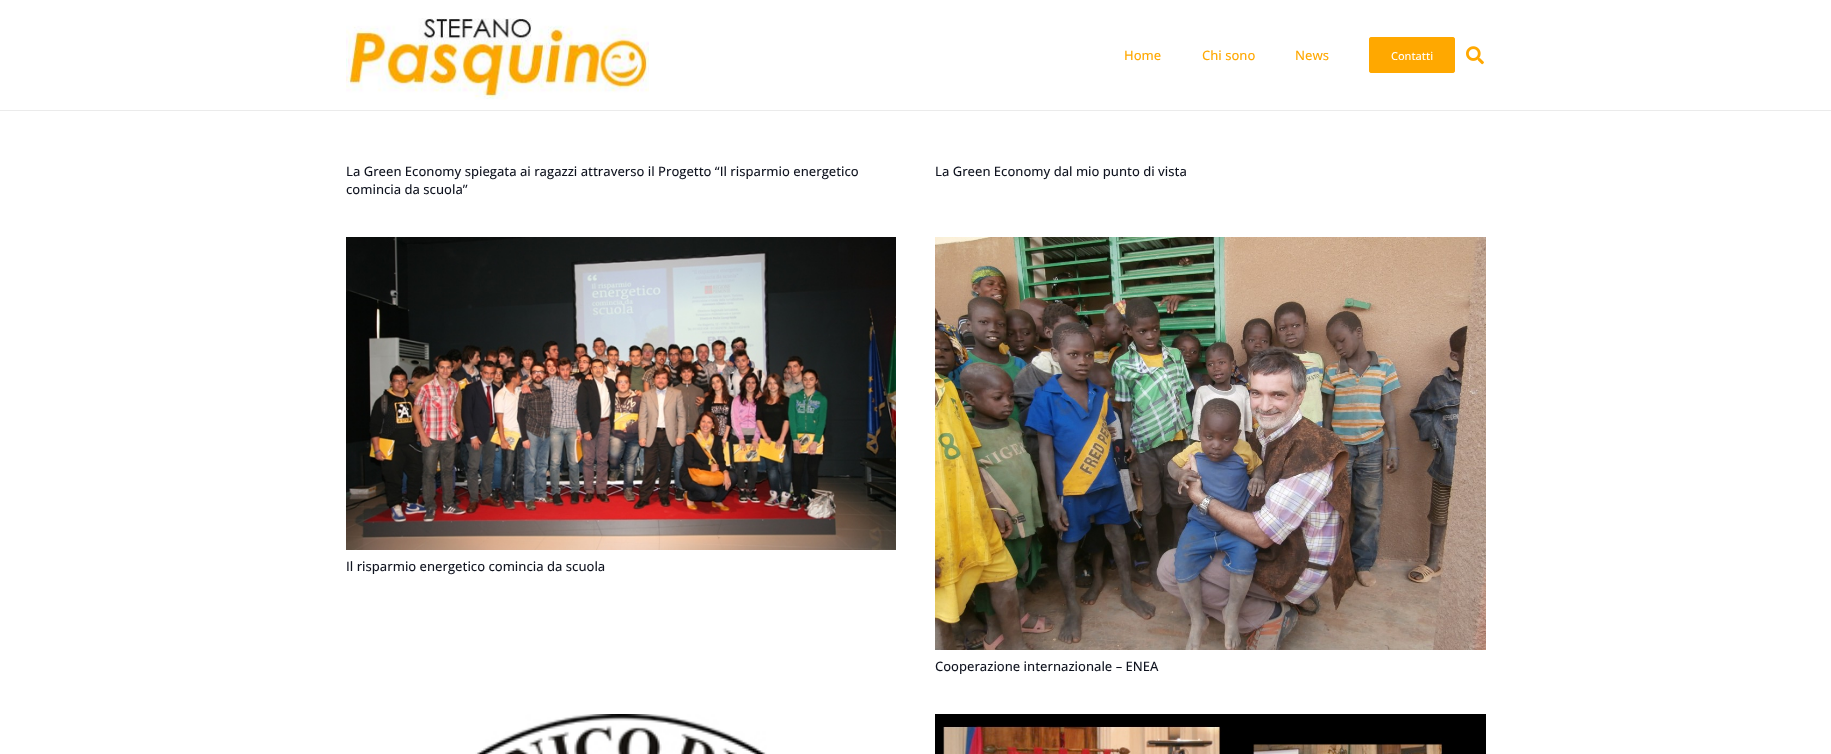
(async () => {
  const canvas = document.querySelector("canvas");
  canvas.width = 1831;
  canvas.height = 754;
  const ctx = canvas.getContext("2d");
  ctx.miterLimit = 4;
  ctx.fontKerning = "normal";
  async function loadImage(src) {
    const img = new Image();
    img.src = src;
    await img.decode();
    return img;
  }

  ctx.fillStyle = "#ffffff";
  ctx.fillRect(0, 0, 1831, 754);
  ctx.fillStyle = "#ebebeb";
  ctx.fillRect(0, 110, 1831, 1);
  ctx.drawImage(await loadImage("img/1.png"), 346, 18, 303, 82);
  ctx.fillStyle = "#ffa800";
  ctx.beginPath();
  ctx.roundRect(1369, 37, 86, 36, 3);
  ctx.fill();
  ctx.beginPath();
  ctx.roundRect(1370, 38, 84, 34, 2);
  ctx.strokeStyle = "#ffa800";
  ctx.lineWidth = 2;
  ctx.stroke();
  ctx.drawImage(await loadImage("img/2.png"), 1466, 46, 18, 19);
  ctx.drawImage(await loadImage("img/3.png"), 346, 237, 550, 313);
  ctx.drawImage(await loadImage("img/4.png"), 935, 237, 551, 413);
  ctx.drawImage(await loadImage("img/5.png"), 475, 714, 292, 40);
  ctx.drawImage(await loadImage("img/6.png"), 935, 714, 551, 40);
  ctx.font = "500 13px Open Sans";
  ctx.fillStyle = "#ffa801";
  for (const [text, x, y] of [
    ["Home", 1124, 60],
    ["Chi sono", 1202, 60],
    ["News", 1295, 60],
  ]) {
    ctx.fillText(text, x, y);
  }
  ctx.font = "500 11px Open Sans";
  ctx.fillStyle = "#ffffff";
  ctx.fillText("Contatti", 1391, 60);
  ctx.font = "500 13px Open Sans";
  ctx.fillStyle = "#0f131f";
  for (const [text, x, y] of [
    ["La Green Economy spiegata ai ragazzi attraverso il Progetto “Il risparmio energetico", 346, 176],
    ["comincia da scuola”", 346, 194],
    ["La Green Economy dal mio punto di vista", 935, 176],
    ["Il risparmio energetico comincia da scuola", 346, 571],
    ["Cooperazione internazionale – ENEA", 935, 671],
  ]) {
    ctx.fillText(text, x, y);
  }
})();
